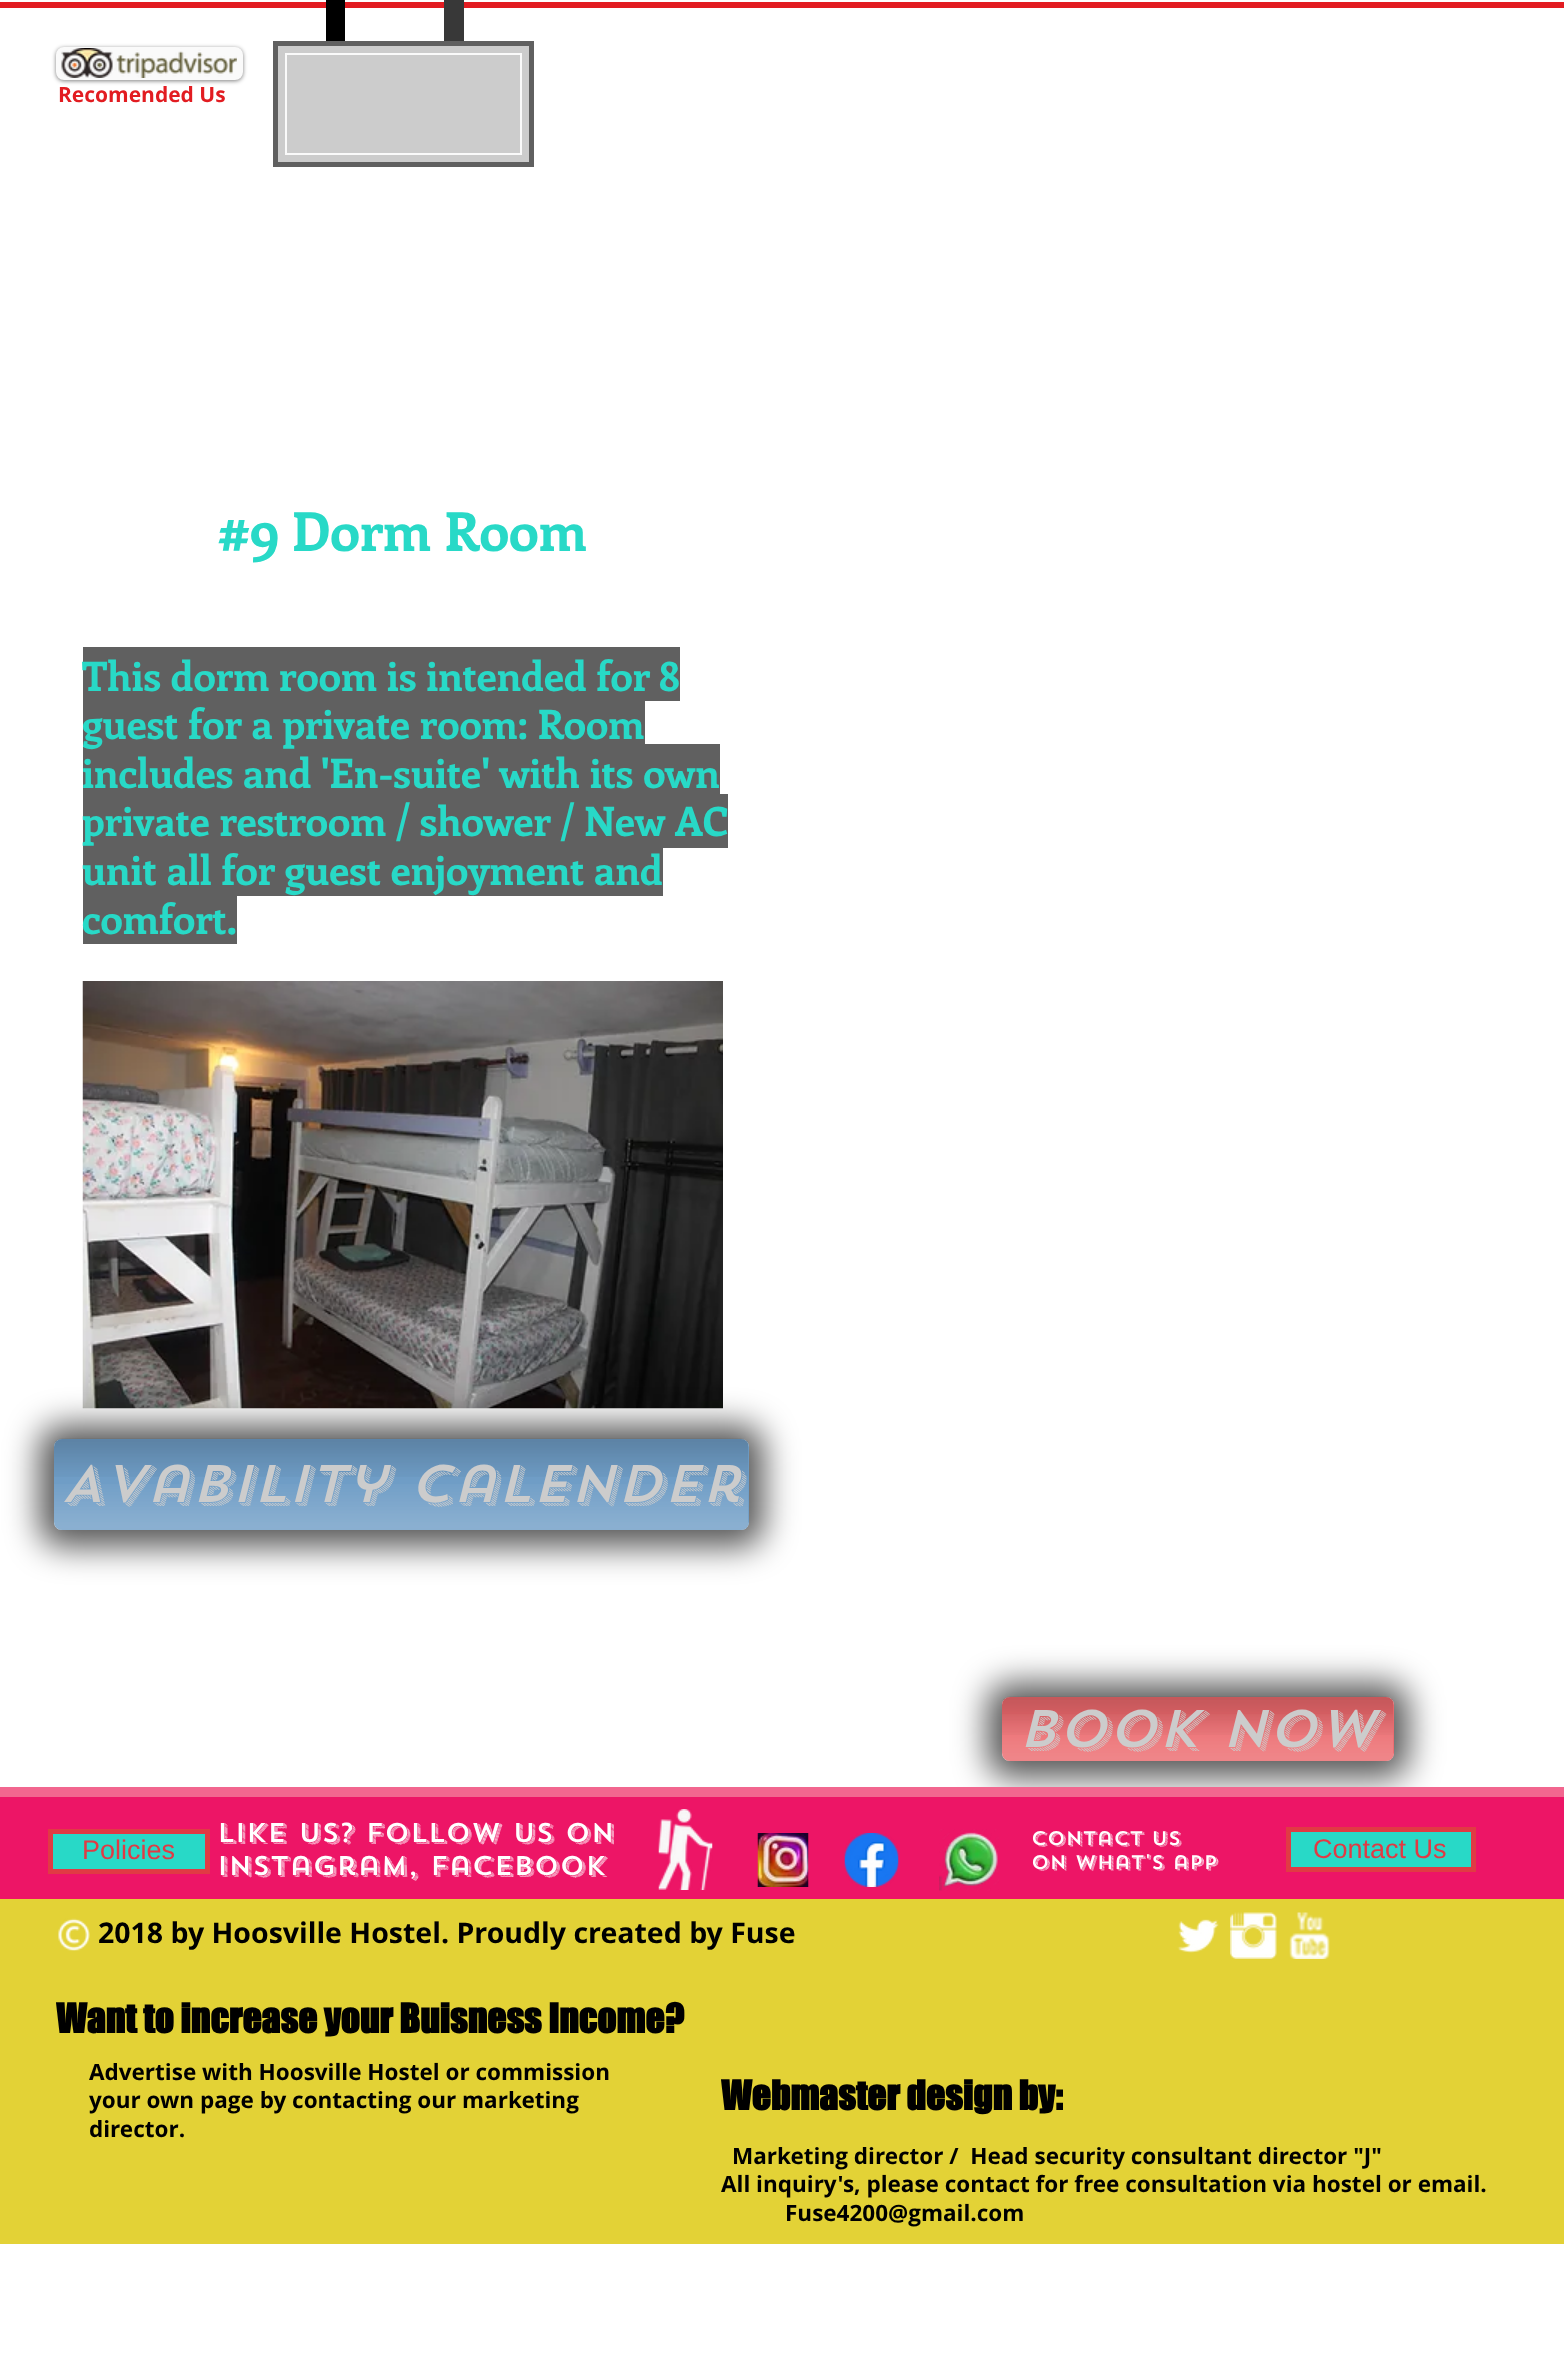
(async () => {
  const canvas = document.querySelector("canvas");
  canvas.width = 1564;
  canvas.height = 2364;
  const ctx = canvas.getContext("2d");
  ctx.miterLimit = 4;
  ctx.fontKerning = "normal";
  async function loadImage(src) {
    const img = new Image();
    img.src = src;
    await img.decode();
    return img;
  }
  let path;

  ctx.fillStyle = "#ffffff";
  ctx.fillRect(0, 0, 1564, 2364);
  for (const [x, y, w, h, color] of [
    [0, 2, 1564, 6, "#e21c21"],
    [326, 0, 19, 41, "#000000"],
    [444, 0, 20, 41, "#383838"],
  ]) {
    ctx.fillStyle = color;
    ctx.fillRect(x, y, w, h);
  }
  ctx.fillStyle = "rgba(0, 0, 0, 0.5)";
  ctx.filter = "blur(2px)";
  ctx.beginPath();
  ctx.roundRect(56, 48, 187, 33, 8);
  ctx.fill();
  ctx.filter = "none";
  ctx.fillStyle = "#fafafa";
  ctx.beginPath();
  ctx.roundRect(57, 48, 185, 31, 7);
  ctx.fill();
  ctx.strokeStyle = "#fafafa";
  ctx.lineWidth = 2;
  ctx.stroke();
  ctx.drawImage(await loadImage("img/1.png"), 61, 48, 176, 30);
  ctx.fillStyle = "#cccccc";
  ctx.beginPath();
  ctx.rect(275.5, 43.5, 256, 121);
  ctx.fill();
  ctx.strokeStyle = "#606060";
  ctx.lineWidth = 5;
  ctx.stroke();
  ctx.strokeStyle = "#fafafa";
  ctx.lineWidth = 2;
  ctx.strokeRect(286, 54, 235, 100);
  for (const [x, y, w, h, color] of [
    [83, 647, 597, 54, "#606060"],
    [83, 701, 562, 43, "#606060"],
    [83, 744, 637, 50, "#606060"],
    [83, 794, 645, 54, "#606060"],
    [83, 848, 580, 48, "#606060"],
    [83, 896, 154, 48, "#606060"],
  ]) {
    ctx.fillStyle = color;
    ctx.fillRect(x, y, w, h);
  }
  ctx.drawImage(await loadImage("img/2.png"), 82, 981, 641, 428);
  ctx.save();
  path = new Path2D("M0 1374H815V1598H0ZM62 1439H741C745.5 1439 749 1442.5 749 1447V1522C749 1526.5 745.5 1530 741 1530H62C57.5 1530 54 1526.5 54 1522V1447C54 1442.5 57.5 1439 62 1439Z");
  ctx.clip(path, "evenodd");
  ctx.fillStyle = "rgba(0, 0, 0, 0.66)";
  ctx.filter = "blur(16.5px)";
  ctx.beginPath();
  ctx.roundRect(39, 1425, 725, 122, 23);
  ctx.fill();
  ctx.filter = "none";
  ctx.restore();
  ctx.fillStyle = "rgba(15, 92, 160, 0.6)";
  ctx.beginPath();
  ctx.roundRect(54, 1439, 695, 91, 8);
  ctx.fill();
  ctx.drawImage(await loadImage("img/3.png"), 54, 1438, 695, 39);
  ctx.drawImage(await loadImage("img/4.png"), 54, 1484, 695, 46);
  ctx.save();
  path = new Path2D("M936 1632H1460V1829H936ZM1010 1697H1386C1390.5 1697 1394 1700.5 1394 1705V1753C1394 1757.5 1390.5 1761 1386 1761H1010C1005.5 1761 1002 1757.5 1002 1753V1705C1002 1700.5 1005.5 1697 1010 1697Z");
  ctx.clip(path, "evenodd");
  ctx.fillStyle = "rgba(0, 0, 0, 0.66)";
  ctx.filter = "blur(16.5px)";
  ctx.beginPath();
  ctx.roundRect(987, 1683, 422, 95, 23);
  ctx.fill();
  ctx.filter = "none";
  ctx.restore();
  ctx.fillStyle = "rgba(226, 28, 33, 0.66)";
  ctx.beginPath();
  ctx.roundRect(1002, 1697, 392, 64, 8);
  ctx.fill();
  ctx.drawImage(await loadImage("img/5.png"), 1002, 1696, 392, 39);
  ctx.drawImage(await loadImage("img/6.png"), 1002, 1714, 392, 47);
  ctx.fillStyle = "#ed1566";
  ctx.fillRect(0, 1797, 1564, 102);
  ctx.fillStyle = "#f2668f";
  ctx.fillRect(0, 1787, 1564, 10);
  ctx.fillStyle = "#28d9c7";
  ctx.beginPath();
  ctx.rect(50.5, 1831.5, 157, 40);
  ctx.fill();
  ctx.strokeStyle = "#e13a44";
  ctx.lineWidth = 5;
  ctx.stroke();
  ctx.drawImage(await loadImage("img/7.png"), 658, 1809, 55, 81);
  ctx.drawImage(await loadImage("img/8.png"), 757, 1833, 52, 54);
  ctx.drawImage(await loadImage("img/9.png"), 844, 1833, 55, 54);
  ctx.drawImage(await loadImage("img/10.png"), 939, 1829, 60, 62);
  ctx.beginPath();
  ctx.rect(1288.5, 1829.5, 185, 40);
  ctx.fill();
  ctx.stroke();
  ctx.fillStyle = "#e3d236";
  ctx.fillRect(0, 1899, 1564, 345);
  ctx.drawImage(await loadImage("img/11.png"), 58, 1918, 32, 33);
  ctx.drawImage(await loadImage("img/12.png"), 1177, 1919, 42, 34);
  ctx.drawImage(await loadImage("img/13.png"), 1230, 1912, 47, 47);
  ctx.drawImage(await loadImage("img/14.png"), 1289, 1912, 41, 47);
  ctx.font = "bold 21px Open Sans";
  ctx.fillStyle = "#e21c21";
  ctx.fillText("Recomended Us", 58, 102);
  ctx.font = "bold 54px Enriqueta";
  ctx.fillStyle = "#28d9c7";
  ctx.fillText("#9 Dorm Room", 218, 551);
  ctx.font = "bold 40.5px Enriqueta";
  for (const [text, x, y] of [
    ["This dorm room is intended for 8", 82, 691],
    ["guest for a private room: Room", 82, 739],
    ["includes and 'En-suite' with its own", 82, 788],
    ["private restroom / shower / New AC", 82, 836],
    ["unit all for guest enjoyment and", 82, 885],
    ["comfort.", 82, 934],
  ]) {
    ctx.fillText(text, x, y);
  }
  ctx.font = "italic 500 52.5px 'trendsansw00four'";
  ctx.fillStyle = "#cccccc";
  ctx.fillText("Avability Calender", 61, 1502);
  ctx.fillText("Book Now", 1018, 1747);
  ctx.font = "27px Liberation Sans";
  ctx.fillStyle = "#e13a44";
  ctx.fillText("Policies", 82, 1859);
  ctx.font = "500 27px 'trendsansw00four'";
  ctx.fillStyle = "#ffffff";
  ctx.fillText("Like Us? Follow us on", 217, 1842);
  ctx.fillText("Instagram, Facebook", 217, 1875);
  ctx.font = "500 19.5px 'trendsansw00four'";
  ctx.fillText("Contact us", 1031, 1845);
  ctx.fillText("on what's app", 1031, 1869);
  ctx.font = "27px Liberation Sans";
  ctx.fillStyle = "#e13a44";
  ctx.fillText("Contact Us", 1313, 1858);
  ctx.font = "bold 28.5px Open Sans";
  ctx.fillStyle = "#000000";
  ctx.fillText("2018 by Hoosville Hostel. Proudly created by Fuse", 98, 1943);
  ctx.font = "bold 37.5px 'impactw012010'";
  ctx.fillText("Want to increase your Buisness Income?", 56, 2033);
  ctx.font = "bold 22.5px Open Sans";
  for (const [text, x, y] of [
    ["Advertise with Hoosville Hostel or commission", 89, 2080],
    ["your own page by contacting our marketing", 89, 2108],
    ["director.", 89, 2137],
  ]) {
    ctx.fillText(text, x, y);
  }
  ctx.font = "bold 37.5px 'impactw012010'";
  ctx.fillText("Webmaster design by:", 721, 2110);
  ctx.font = "bold 22.5px Open Sans";
  for (const [text, x, y] of [
    ["Marketing director /  Head security consultant director \"J\"", 732, 2164],
    ["All inquiry's, please contact for free consultation via hostel or email.", 721, 2192],
    ["Fuse4200@gmail.com", 785, 2221],
  ]) {
    ctx.fillText(text, x, y);
  }
})();
